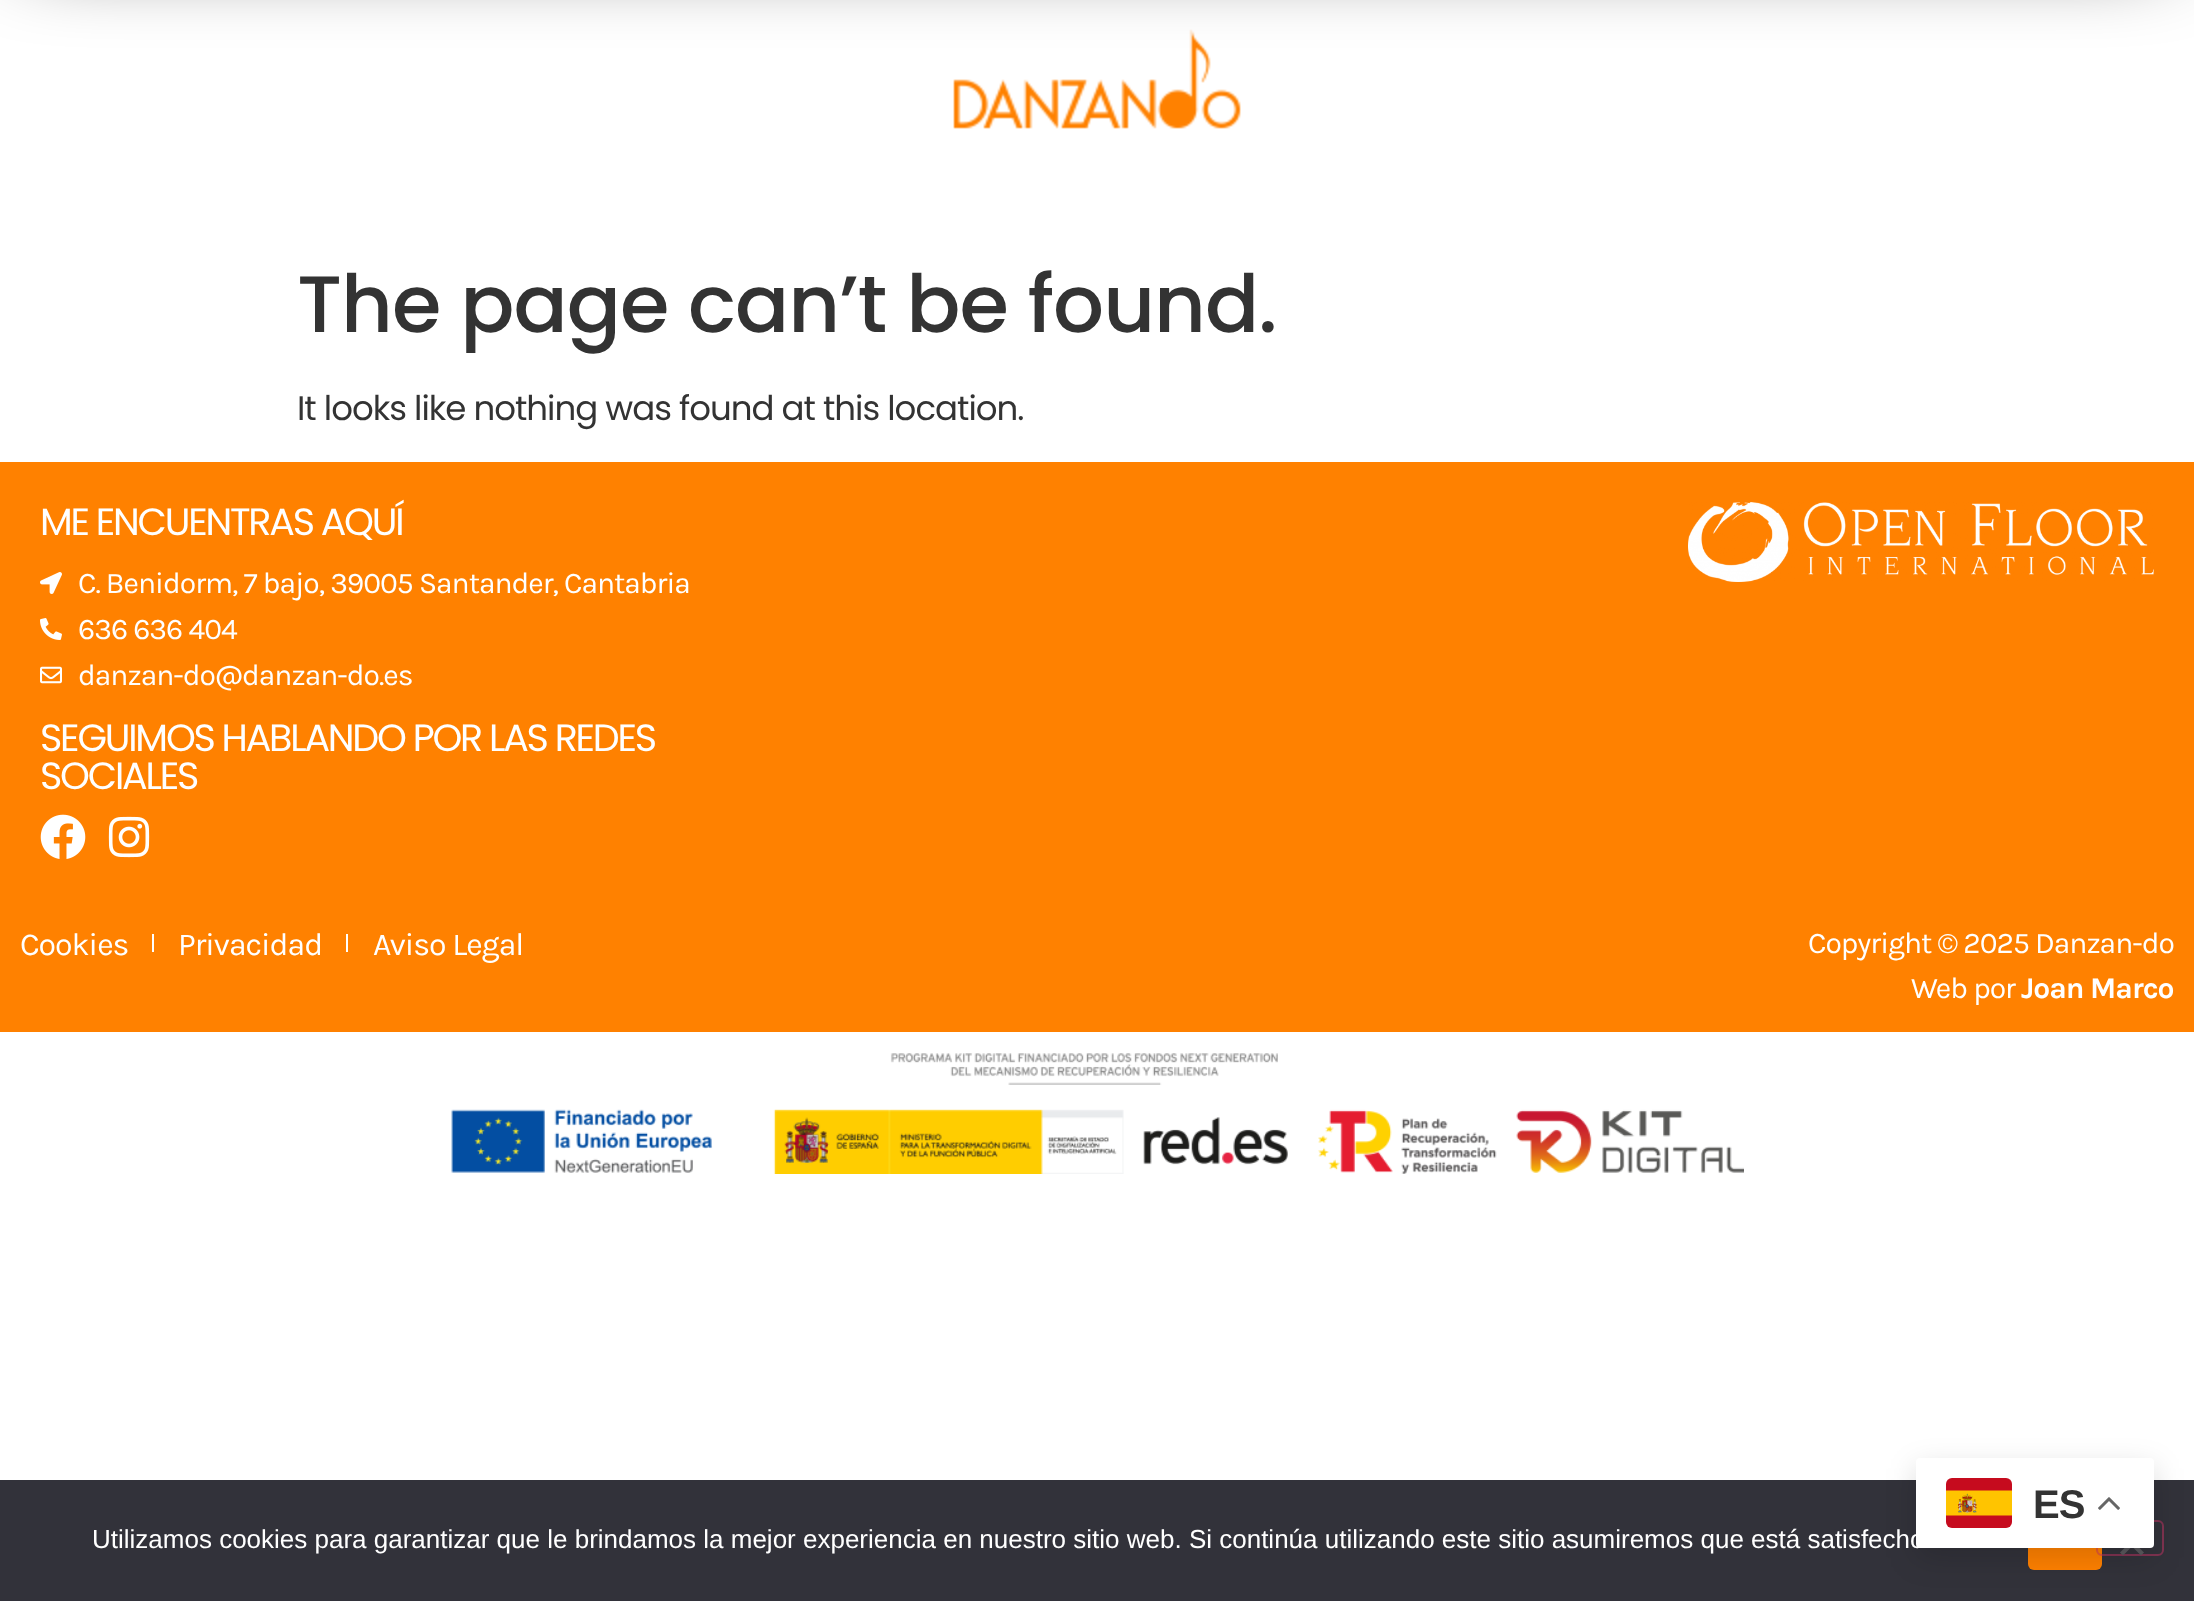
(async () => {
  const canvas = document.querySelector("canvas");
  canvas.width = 2194;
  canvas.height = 1601;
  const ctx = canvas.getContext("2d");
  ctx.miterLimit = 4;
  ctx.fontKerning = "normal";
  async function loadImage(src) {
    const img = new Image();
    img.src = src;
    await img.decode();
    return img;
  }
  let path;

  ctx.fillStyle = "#ffffff";
  ctx.fillRect(0, 0, 2194, 1601);
  ctx.drawImage(await loadImage("img/1.png"), 953, 29, 288, 100);
  ctx.fillStyle = "#000000";
  ctx.filter = "blur(45px)";
  ctx.beginPath();
  ctx.rect(30, -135, 2134, 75);
  ctx.fill();
  ctx.filter = "none";
  ctx.fillStyle = "#ff8100";
  ctx.fillRect(0, 462, 2194, 570);
  ctx.drawImage(await loadImage("img/2.png"), 40, 572, 22, 22);
  ctx.drawImage(await loadImage("img/3.png"), 40, 618, 22, 22);
  ctx.drawImage(await loadImage("img/4.png"), 40, 666, 22, 18);
  ctx.drawImage(await loadImage("img/5.png"), 40, 814, 46, 45);
  ctx.drawImage(await loadImage("img/6.png"), 108, 816, 42, 42);
  ctx.drawImage(await loadImage("img/7.png"), 1688, 502, 466, 80);
  ctx.fillStyle = "#ffffff";
  ctx.fillRect(152, 934, 2, 18);
  ctx.fillRect(346, 934, 2, 18);
  ctx.drawImage(await loadImage("img/8.png"), 451, 1053, 1293, 121);
  ctx.fillStyle = "#32323a";
  ctx.fillRect(0, 1480, 2194, 121);
  ctx.fillStyle = "#ff8100";
  ctx.beginPath();
  ctx.roundRect(2028, 1510, 74, 60, 6);
  ctx.fill();
  ctx.beginPath();
  ctx.roundRect(2097, 1521, 66, 34, 5);
  ctx.strokeStyle = "rgba(204, 51, 102, 0.5)";
  ctx.lineWidth = 2;
  ctx.stroke();
  ctx.fillStyle = "#59595d";
  path = new Path2D("M2141 1531.5L2144 1534.5L2123 1555.5L2120 1552.5Z");
  ctx.fill(path);
  path = new Path2D("M2120 1534.5L2123 1531.5L2144 1552.5L2141 1555.5Z");
  ctx.fill(path);
  ctx.fillStyle = "rgba(0, 0, 0, 0.15)";
  ctx.filter = "blur(15px)";
  ctx.beginPath();
  ctx.roundRect(1916, 1468, 238, 90, 4);
  ctx.fill();
  ctx.filter = "none";
  ctx.fillStyle = "#ffffff";
  ctx.beginPath();
  ctx.roundRect(1916, 1458, 238, 90, 4);
  ctx.fill();
  ctx.drawImage(await loadImage("img/9.png"), 1946, 1478, 66, 50);
  ctx.drawImage(await loadImage("img/10.png"), 2098, 1497, 22, 13);
  ctx.letterSpacing = "-1px";
  ctx.font = "500 80px Poppins";
  ctx.fillStyle = "#333333";
  ctx.fillText("The page can’t be found.", 297, 332);
  ctx.font = "34px Poppins";
  ctx.fillText("It looks like nothing was found at this location.", 297, 420);
  ctx.letterSpacing = "-2.2px";
  ctx.font = "38px Poppins";
  ctx.fillStyle = "#ffffff";
  ctx.fillText("ME ENCUENTRAS AQUÍ", 40, 535);
  ctx.letterSpacing = "-1px";
  ctx.font = "30px Karla";
  for (const [text, x, y] of [
    ["C. Benidorm, 7 bajo, 39005 Santander, Cantabria", 78, 593],
    ["636 636 404", 78, 639],
    ["danzan-do@danzan-do.es", 78, 685],
  ]) {
    ctx.fillText(text, x, y);
  }
  ctx.letterSpacing = "-2.2px";
  ctx.font = "38px Poppins";
  ctx.fillText("SEGUIMOS HABLANDO POR LAS REDES", 40, 751);
  ctx.fillText("SOCIALES", 40, 789);
  ctx.letterSpacing = "-1px";
  ctx.font = "32px Karla";
  for (const [text, x, y] of [
    ["Cookies", 20, 955],
    ["Privacidad", 178, 955],
    ["Aviso Legal", 373, 955],
  ]) {
    ctx.fillText(text, x, y);
  }
  ctx.font = "30px Karla";
  ctx.fillText("Copyright © 2025 Danzan-do", 1808, 953);
  ctx.fillText("Web por", 1911, 998);
  ctx.font = "bold 30px Karla";
  ctx.fillText("Joan Marco", 2021, 998);
  ctx.font = "bold 40px Liberation Sans";
  ctx.fillStyle = "#333333";
  ctx.fillText("ES", 2033, 1518);
  ctx.letterSpacing = "0px";
  ctx.font = "26px Liberation Sans";
  ctx.fillStyle = "#ffffff";
  ctx.fillText("Utilizamos cookies para garantizar que le brindamos la mejor experiencia en nuestro sitio web. Si continúa utilizando este sitio asumiremos que está satisfecho", 92, 1548);
})();
